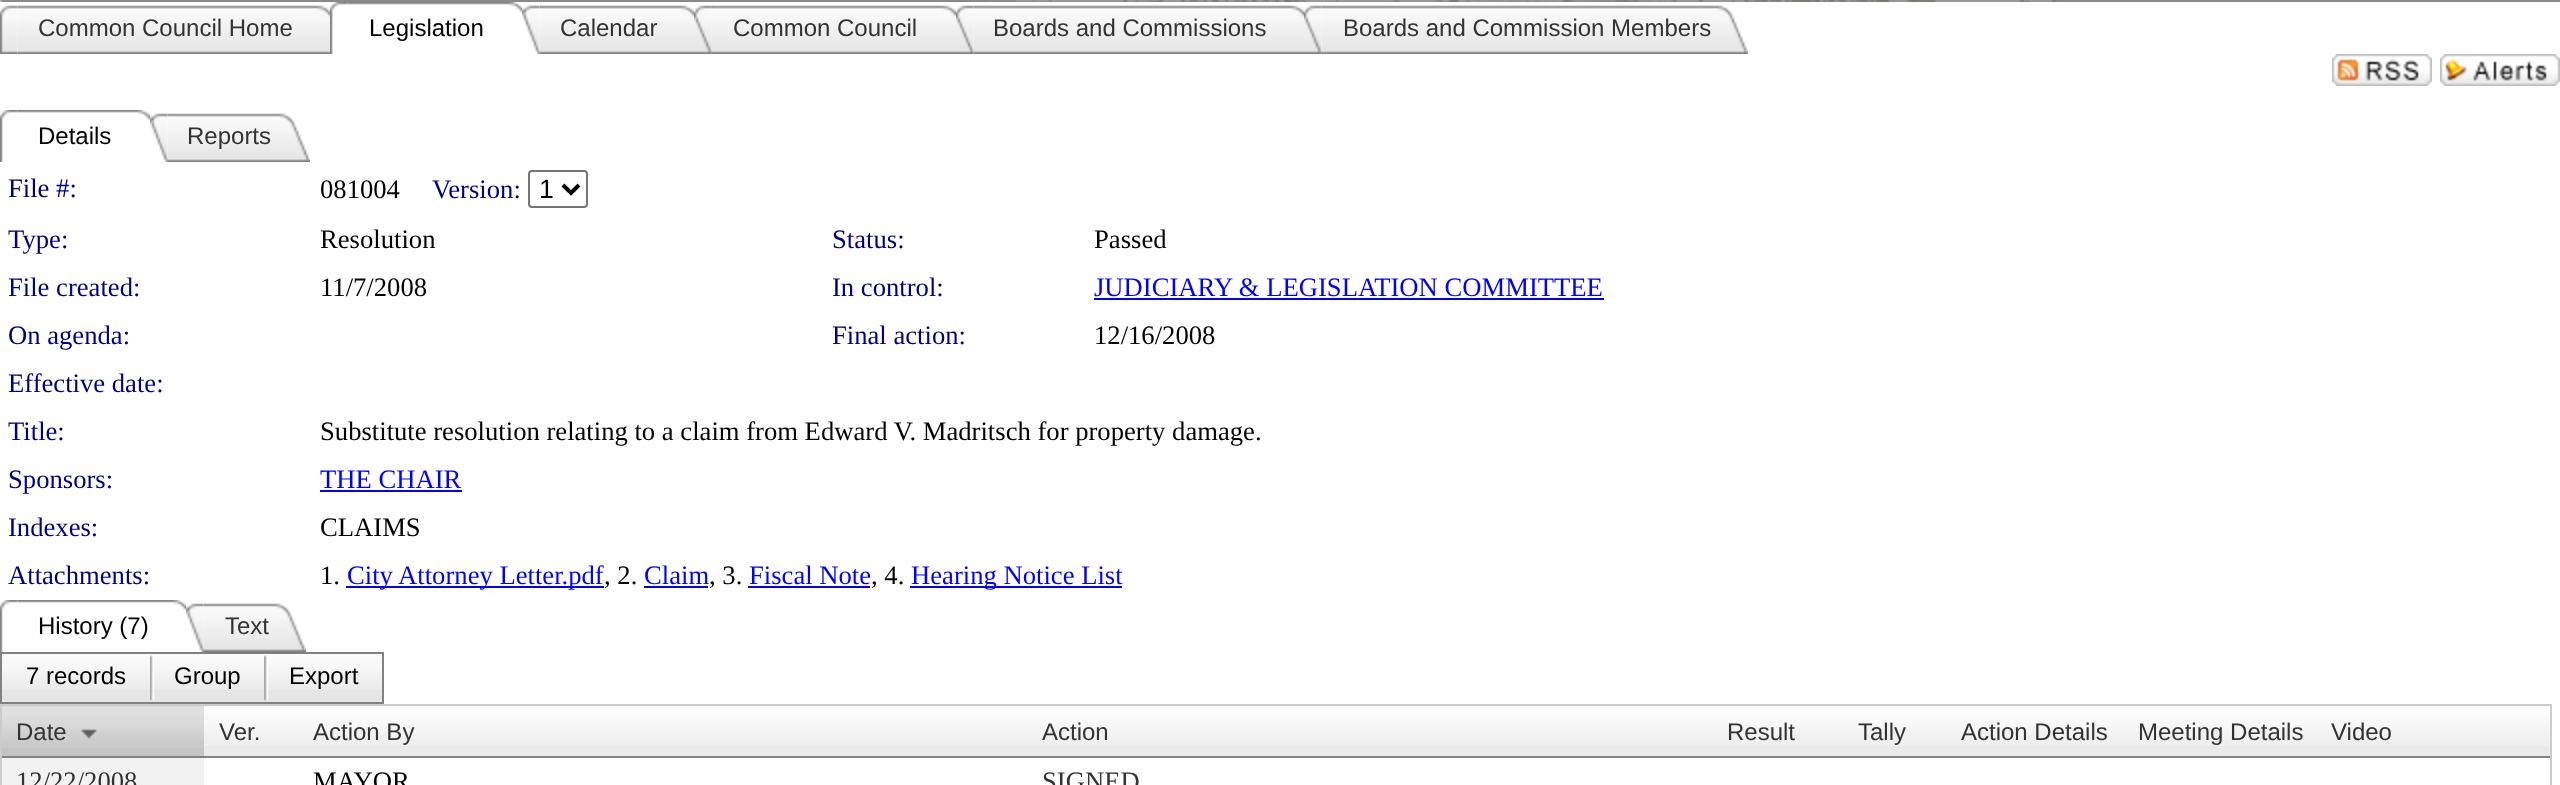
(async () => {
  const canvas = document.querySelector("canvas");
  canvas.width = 2560;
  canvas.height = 785;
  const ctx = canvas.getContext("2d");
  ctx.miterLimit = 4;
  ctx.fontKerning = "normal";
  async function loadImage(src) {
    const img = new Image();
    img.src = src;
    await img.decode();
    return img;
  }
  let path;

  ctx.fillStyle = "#ffffff";
  ctx.fillRect(0, 0, 2560, 785);
  ctx.drawImage(await loadImage("img/1.png"), 3, 0, 2557, 2);
  ctx.drawImage(await loadImage("img/2.png"), 0, 0, 3, 2);
  ctx.drawImage(await loadImage("img/3.png"), 990, 0, 1067, 2);
  ctx.drawImage(await loadImage("img/4.png"), 0, 5, 19, 49);
  ctx.drawImage(await loadImage("img/5.png"), 18, 5, 312, 49);
  ctx.drawImage(await loadImage("img/6.png"), 330, 2, 19, 52);
  ctx.drawImage(await loadImage("img/7.png"), 348, 2, 174, 11);
  ctx.drawImage(await loadImage("img/8.png"), 522, 5, 19, 49);
  ctx.drawImage(await loadImage("img/9.png"), 540, 5, 154, 49);
  ctx.drawImage(await loadImage("img/10.png"), 694, 5, 19, 49);
  ctx.drawImage(await loadImage("img/11.png"), 712, 5, 244, 49);
  ctx.drawImage(await loadImage("img/12.png"), 956, 5, 19, 49);
  ctx.drawImage(await loadImage("img/13.png"), 974, 5, 330, 49);
  ctx.drawImage(await loadImage("img/12.png"), 1304, 5, 19, 49);
  ctx.drawImage(await loadImage("img/14.png"), 1322, 5, 426, 49);
  ctx.drawImage(await loadImage("img/15.png"), 2332, 54, 100, 32);
  ctx.drawImage(await loadImage("img/16.png"), 2440, 54, 120, 32);
  ctx.drawImage(await loadImage("img/6.png"), 0, 110, 19, 52);
  ctx.drawImage(await loadImage("img/17.png"), 18, 110, 132, 11);
  ctx.drawImage(await loadImage("img/18.png"), 150, 113, 19, 49);
  ctx.drawImage(await loadImage("img/19.png"), 168, 113, 142, 49);
  ctx.beginPath();
  ctx.roundRect(529, 171, 58, 36, 3);
  ctx.strokeStyle = "#767676";
  ctx.lineWidth = 2;
  ctx.stroke();
  path = new Path2D("M563 185L571 193L579 185");
  ctx.strokeStyle = "#000000";
  ctx.lineWidth = 4;
  ctx.stroke(path);
  for (const [x, y, w, h, color] of [
    [1094, 298, 510, 2, "#0000ff"],
    [320, 490, 142, 2, "#0000ff"],
    [346, 586, 258, 2, "#0000ff"],
    [644, 586, 64, 2, "#0000ff"],
    [748, 586, 122, 2, "#0000ff"],
    [910, 586, 212, 2, "#0000ff"],
  ]) {
    ctx.fillStyle = color;
    ctx.fillRect(x, y, w, h);
  }
  ctx.drawImage(await loadImage("img/20.png"), 0, 600, 19, 52);
  ctx.drawImage(await loadImage("img/21.png"), 18, 600, 168, 11);
  ctx.drawImage(await loadImage("img/18.png"), 186, 603, 19, 49);
  ctx.drawImage(await loadImage("img/22.png"), 204, 603, 102, 49);
  ctx.fillStyle = "#e6e6e6";
  ctx.fillRect(2, 690, 380, 12);
  ctx.drawImage(await loadImage("img/23.png"), 2, 654, 380, 36);
  ctx.strokeStyle = "#828282";
  ctx.lineWidth = 2;
  ctx.strokeRect(1, 653, 382, 50);
  ctx.drawImage(await loadImage("img/24.png"), 150, 655, 5, 46);
  ctx.drawImage(await loadImage("img/25.png"), 264, 655, 5, 46);
  ctx.strokeStyle = "#cccccc";
  ctx.strokeRect(1, 705, 2550, 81);
  ctx.fillStyle = "#c4c4c4";
  ctx.fillRect(2, 706, 202, 50);
  ctx.drawImage(await loadImage("img/26.png"), 2, 706, 202, 42);
  ctx.fillStyle = "#828282";
  ctx.fillRect(2, 756, 2548, 2);
  ctx.drawImage(await loadImage("img/27.png"), 81, 729, 16, 10);
  ctx.fillStyle = "#eaeaea";
  ctx.fillRect(204, 706, 2346, 50);
  ctx.drawImage(await loadImage("img/28.png"), 204, 706, 96, 40);
  ctx.drawImage(await loadImage("img/29.png"), 300, 706, 728, 40);
  ctx.drawImage(await loadImage("img/30.png"), 1028, 706, 686, 40);
  ctx.drawImage(await loadImage("img/31.png"), 1714, 706, 130, 40);
  ctx.drawImage(await loadImage("img/32.png"), 1844, 706, 102, 40);
  ctx.drawImage(await loadImage("img/33.png"), 1946, 706, 178, 40);
  ctx.drawImage(await loadImage("img/34.png"), 2124, 706, 194, 40);
  ctx.drawImage(await loadImage("img/35.png"), 2318, 706, 232, 40);
  ctx.fillStyle = "#f2f2f2";
  ctx.fillRect(2, 758, 202, 27);
  ctx.font = "24px Liberation Sans";
  ctx.fillStyle = "#333333";
  ctx.fillText("Common Council Home", 38, 36);
  ctx.fillStyle = "#000000";
  ctx.fillText("Legislation", 369, 36);
  ctx.fillStyle = "#333333";
  for (const [text, x, y] of [
    ["Calendar", 560, 36],
    ["Common Council", 733, 36],
    ["Boards and Commissions", 993, 36],
    ["Boards and Commission Members", 1343, 36],
  ]) {
    ctx.fillText(text, x, y);
  }
  ctx.fillStyle = "#000000";
  ctx.fillText("Details", 38, 144);
  ctx.fillStyle = "#333333";
  ctx.fillText("Reports", 187, 144);
  ctx.font = "26.65px Liberation Serif";
  ctx.fillStyle = "#000080";
  ctx.fillText("File #:", 8, 197);
  ctx.fillStyle = "#000000";
  ctx.fillText("081004", 320, 198);
  ctx.fillStyle = "#000080";
  ctx.fillText("Version:", 432, 198);
  ctx.font = "26.65px Liberation Sans";
  ctx.fillStyle = "#000000";
  ctx.fillText("1", 539, 198);
  ctx.font = "26.65px Liberation Serif";
  ctx.fillStyle = "#000080";
  ctx.fillText("Type:", 8, 248);
  ctx.fillStyle = "#000000";
  ctx.fillText("Resolution", 320, 248);
  ctx.fillStyle = "#000080";
  ctx.fillText("Status:", 832, 248);
  ctx.fillStyle = "#000000";
  ctx.fillText("Passed", 1094, 248);
  ctx.fillStyle = "#000080";
  ctx.fillText("File created:", 8, 296);
  ctx.fillStyle = "#000000";
  ctx.fillText("11/7/2008", 320, 296);
  ctx.fillStyle = "#000080";
  ctx.fillText("In control:", 832, 296);
  ctx.fillStyle = "#0000ff";
  ctx.fillText("JUDICIARY & LEGISLATION COMMITTEE", 1094, 296);
  ctx.fillStyle = "#000080";
  ctx.fillText("On agenda:", 8, 344);
  ctx.fillText("Final action:", 832, 344);
  ctx.fillStyle = "#000000";
  ctx.fillText("12/16/2008", 1094, 344);
  ctx.fillStyle = "#000080";
  ctx.fillText("Effective date:", 8, 392);
  ctx.fillText("Title:", 8, 440);
  ctx.fillStyle = "#000000";
  ctx.fillText("Substitute resolution relating to a claim from Edward V. Madritsch for property damage.", 320, 440);
  ctx.fillStyle = "#000080";
  ctx.fillText("Sponsors:", 8, 488);
  ctx.fillStyle = "#0000ff";
  ctx.fillText("THE CHAIR", 320, 488);
  ctx.fillStyle = "#000080";
  ctx.fillText("Indexes:", 8, 536);
  ctx.fillStyle = "#000000";
  ctx.fillText("CLAIMS", 320, 536);
  ctx.fillStyle = "#000080";
  ctx.fillText("Attachments:", 8, 584);
  ctx.fillStyle = "#000000";
  ctx.fillText("1.", 320, 584);
  ctx.fillStyle = "#0000ff";
  ctx.fillText("City Attorney Letter.pdf", 347, 584);
  ctx.fillStyle = "#000000";
  ctx.fillText(", 2.", 604, 584);
  ctx.fillStyle = "#0000ff";
  ctx.fillText("Claim", 644, 584);
  ctx.fillStyle = "#000000";
  ctx.fillText(", 3.", 709, 584);
  ctx.fillStyle = "#0000ff";
  ctx.fillText("Fiscal Note", 749, 584);
  ctx.fillStyle = "#000000";
  ctx.fillText(", 4.", 871, 584);
  ctx.fillStyle = "#0000ff";
  ctx.fillText("Hearing Notice List", 911, 584);
  ctx.font = "24px Liberation Sans";
  ctx.fillStyle = "#000000";
  ctx.fillText("History (7)", 38, 634);
  ctx.fillStyle = "#333333";
  ctx.fillText("Text", 225, 634);
  ctx.fillStyle = "#000000";
  for (const [text, x, y] of [
    ["7 records", 26, 684],
    ["Group", 174, 684],
    ["Export", 289, 684],
  ]) {
    ctx.fillText(text, x, y);
  }
  ctx.fillStyle = "#333333";
  for (const [text, x, y] of [
    ["Date", 16, 740],
    ["Ver.", 219, 740],
    ["Action By", 313, 740],
    ["Action", 1042, 740],
    ["Result", 1727, 740],
    ["Tally", 1858, 740],
    ["Action Details", 1961, 740],
    ["Meeting Details", 2138, 740],
    ["Video", 2331, 740],
  ]) {
    ctx.fillText(text, x, y);
  }
  ctx.font = "26.65px Liberation Serif";
  ctx.fillText("12/22/2008", 16, 790);
  ctx.fillStyle = "#000000";
  ctx.fillText("MAYOR", 313, 790);
  ctx.fillStyle = "#333333";
  ctx.fillText("SIGNED", 1042, 790);
})();
